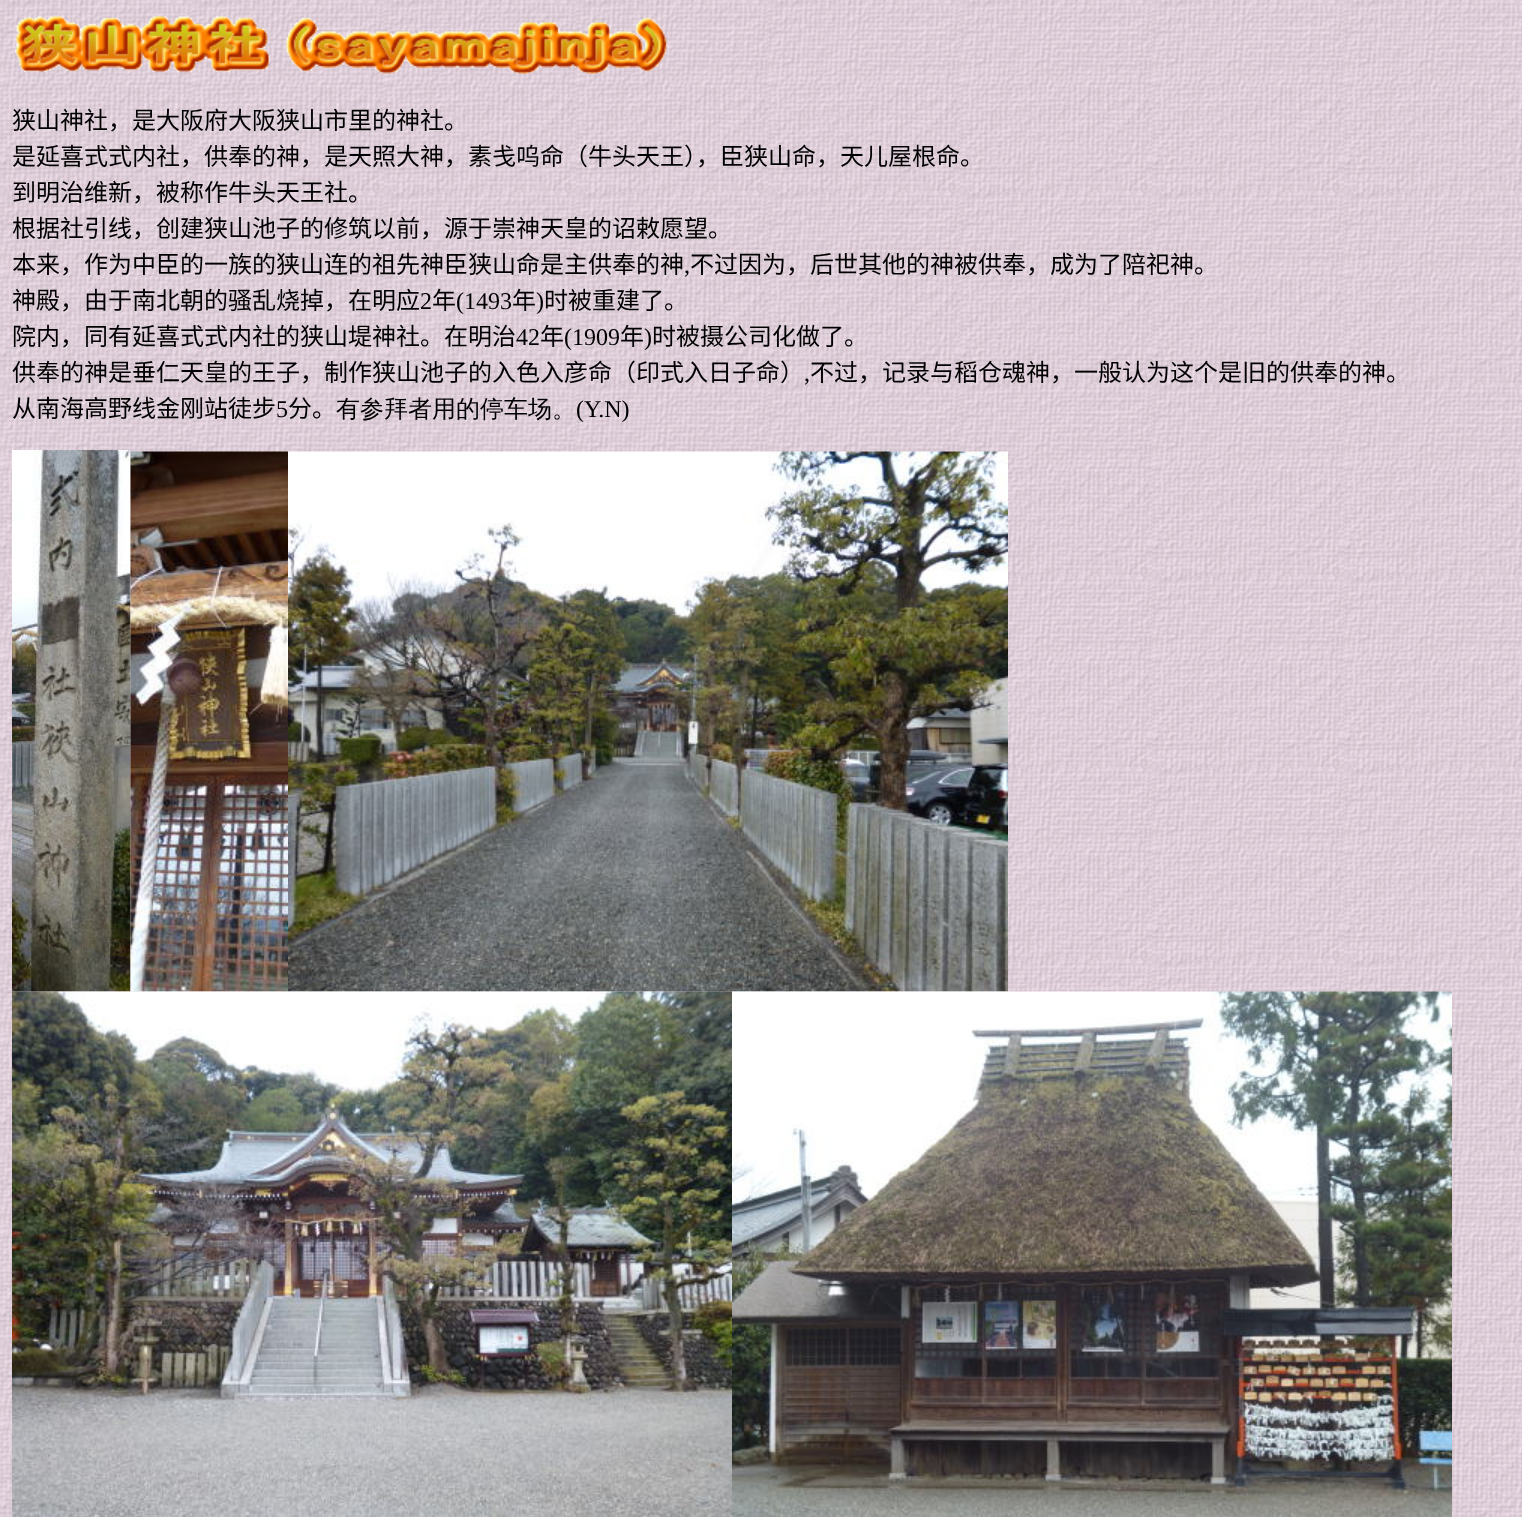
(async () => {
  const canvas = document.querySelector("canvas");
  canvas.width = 1522;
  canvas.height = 1517;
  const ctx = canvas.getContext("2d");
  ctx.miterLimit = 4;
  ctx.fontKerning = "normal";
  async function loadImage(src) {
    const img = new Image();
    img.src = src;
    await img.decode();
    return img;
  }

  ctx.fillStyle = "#ffffff";
  ctx.fillRect(0, 0, 1522, 1517);
  ctx.drawImage(await loadImage("img/1.png"), 0, 0, 1522, 1517);
  ctx.drawImage(await loadImage("img/2.png"), 14, 16, 654, 58);
  ctx.drawImage(await loadImage("img/3.png"), 12, 450, 119, 542);
  ctx.drawImage(await loadImage("img/4.png"), 130, 451, 158, 541);
  ctx.drawImage(await loadImage("img/5.png"), 288, 451, 720, 541);
  ctx.drawImage(await loadImage("img/6.png"), 12, 991, 720, 526);
  ctx.drawImage(await loadImage("img/7.png"), 732, 991, 720, 526);
  ctx.font = "24px Noto Sans CJK SC";
  ctx.fillStyle = "#000000";
  for (const [text, x, y] of [
    ["狭山神社，是大阪府大阪狭山市里的神社。", 12, 129],
    ["是延喜式式内社，供奉的神，是天照大神，素戋呜命（牛头天王），臣狭山命，天儿屋根命。", 12, 165],
    ["到明治维新，被称作牛头天王社。", 12, 201],
    ["根据社引线，创建狭山池子的修筑以前，源于崇神天皇的诏敕愿望。", 12, 237],
    ["本来，作为中臣的一族的狭山连的祖先神臣狭山命是主供奉的神", 12, 273],
  ]) {
    ctx.fillText(text, x, y);
  }
  ctx.font = "24px Liberation Serif";
  ctx.fillText(",", 684, 273);
  ctx.font = "24px Noto Sans CJK SC";
  ctx.fillText("不过因为，后世其他的神被供奉，成为了陪祀神。", 690, 273);
  ctx.fillText("神殿，由于南北朝的骚乱烧掉，在明应", 12, 309);
  ctx.font = "24px Liberation Serif";
  ctx.fillText("2", 420, 309);
  ctx.font = "24px Noto Sans CJK SC";
  ctx.fillText("年", 432, 309);
  ctx.font = "24px Liberation Serif";
  ctx.fillText("(1493", 456, 309);
  ctx.font = "24px Noto Sans CJK SC";
  ctx.fillText("年", 512, 309);
  ctx.font = "24px Liberation Serif";
  ctx.fillText(")", 536, 309);
  ctx.font = "24px Noto Sans CJK SC";
  ctx.fillText("时被重建了。", 544, 309);
  ctx.fillText("院内，同有延喜式式内社的狭山堤神社。在明治", 12, 345);
  ctx.font = "24px Liberation Serif";
  ctx.fillText("42", 516, 345);
  ctx.font = "24px Noto Sans CJK SC";
  ctx.fillText("年", 540, 345);
  ctx.font = "24px Liberation Serif";
  ctx.fillText("(1909", 564, 345);
  ctx.font = "24px Noto Sans CJK SC";
  ctx.fillText("年", 620, 345);
  ctx.font = "24px Liberation Serif";
  ctx.fillText(")", 644, 345);
  ctx.font = "24px Noto Sans CJK SC";
  ctx.fillText("时被摄公司化做了。", 652, 345);
  ctx.fillText("供奉的神是垂仁天皇的王子，制作狭山池子的入色入彦命（印式入日子命）", 12, 381);
  ctx.font = "24px Liberation Serif";
  ctx.fillText(",", 804, 381);
  ctx.font = "24px Noto Sans CJK SC";
  ctx.fillText("不过，记录与稻仓魂神，一般认为这个是旧的供奉的神。", 810, 381);
  ctx.fillText("从南海高野线金刚站徒步", 12, 417);
  ctx.font = "24px Liberation Serif";
  ctx.fillText("5", 276, 417);
  ctx.font = "24px Noto Sans CJK SC";
  ctx.fillText("分。", 288, 417);
  ctx.font = "500 24px WenQuanYi Zen Hei";
  ctx.fillText("有参拜者用的停车场。", 336, 417);
  ctx.font = "24px Liberation Serif";
  ctx.fillText("(Y.N)", 576, 417);
})();
